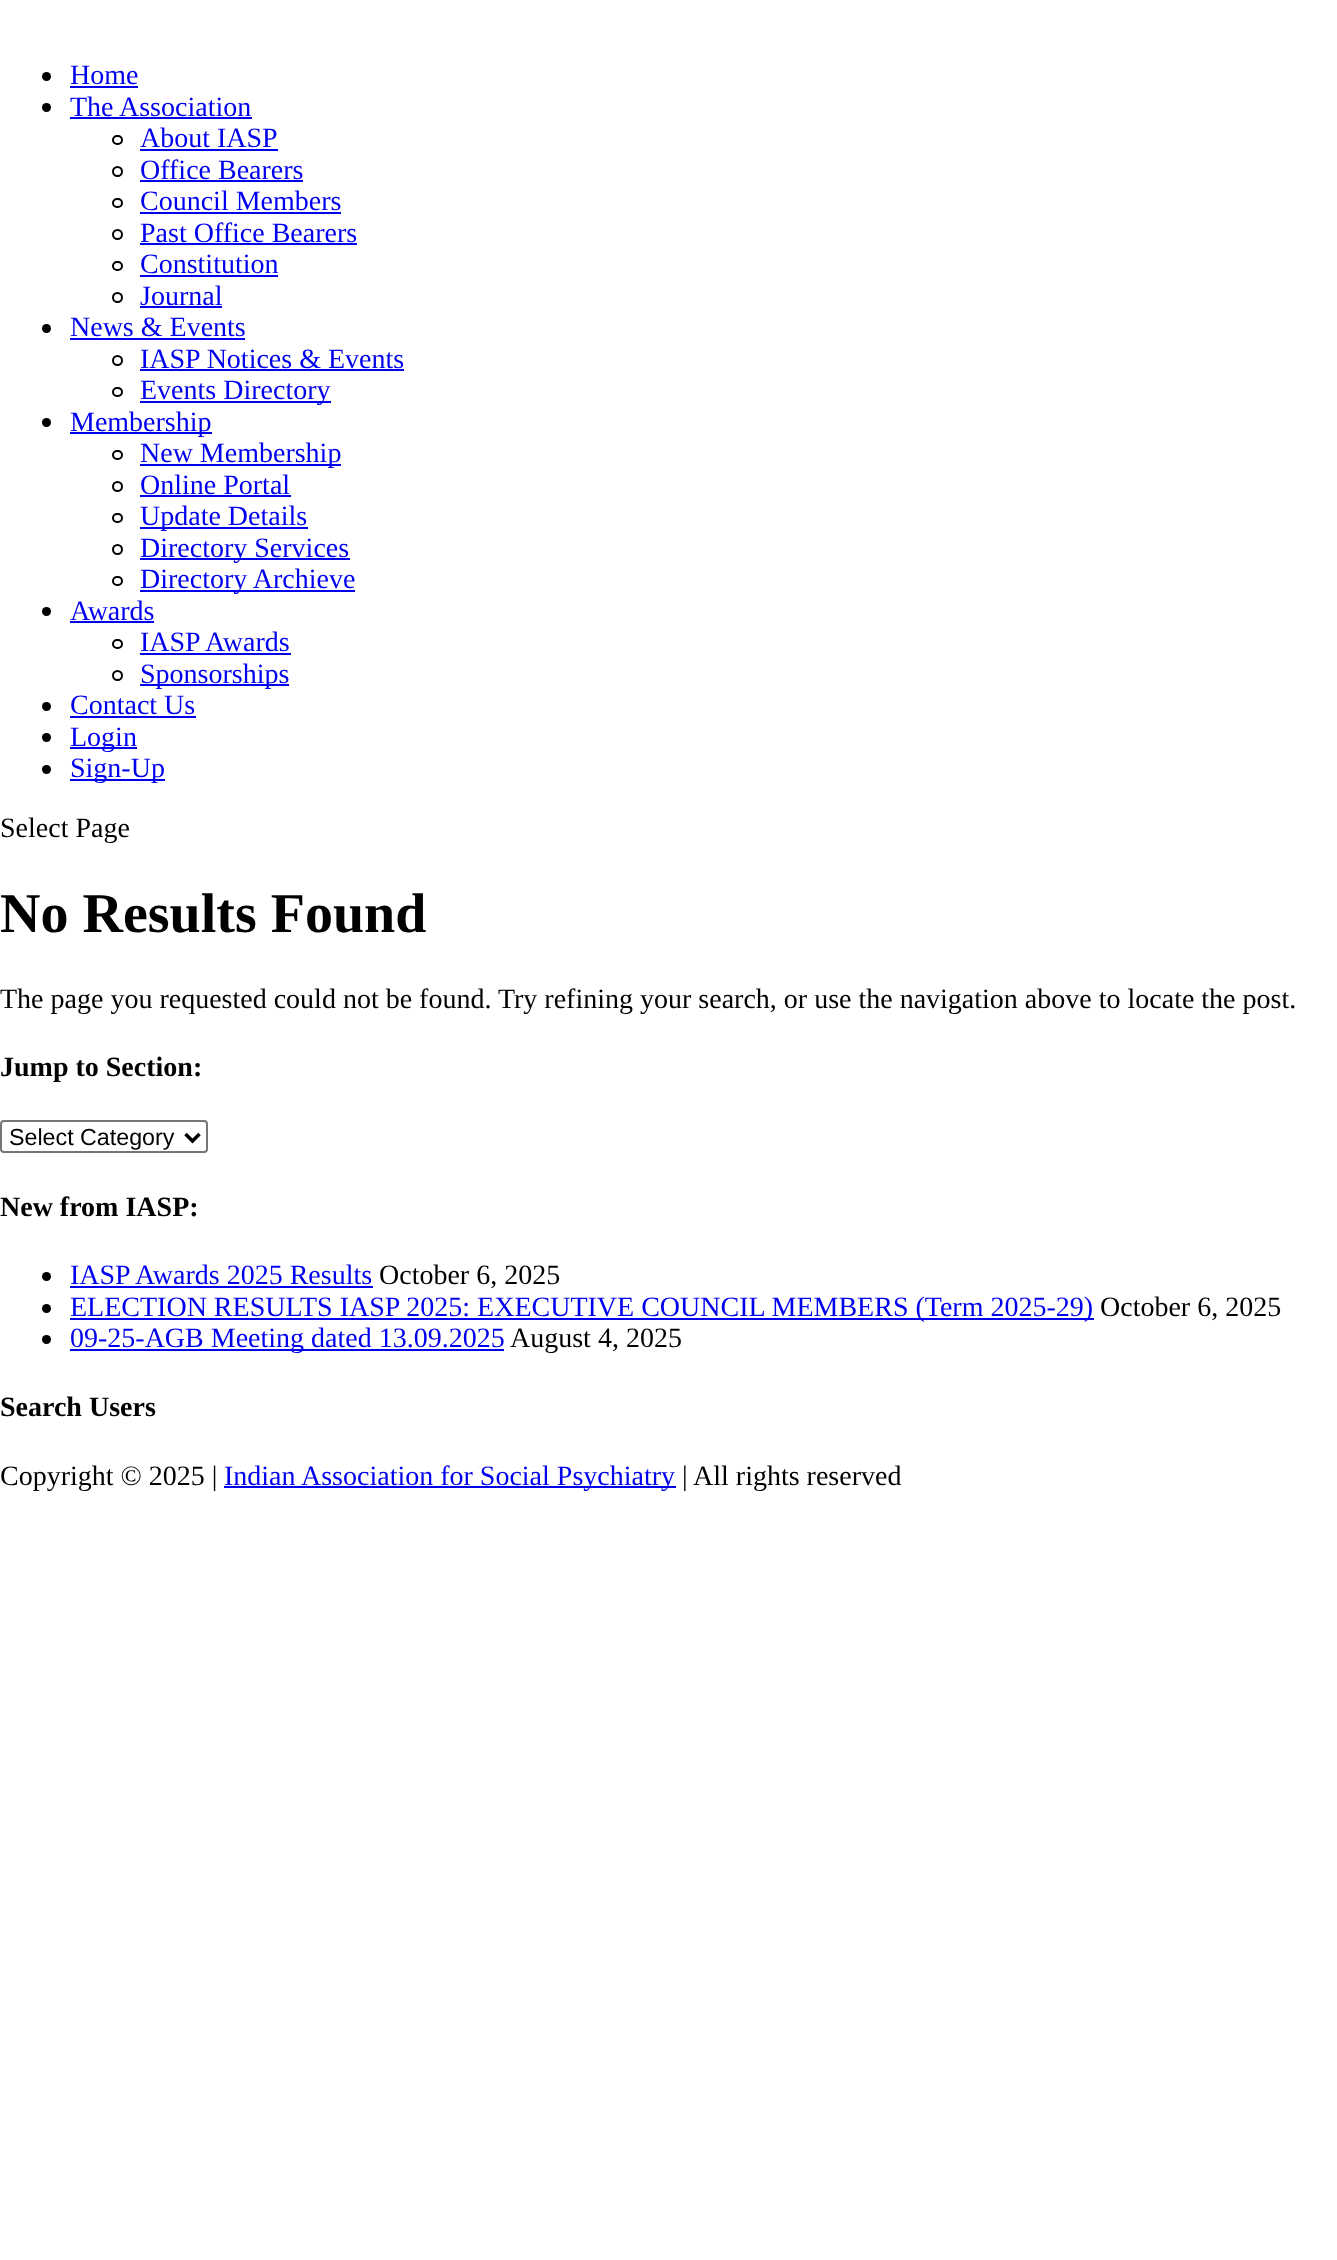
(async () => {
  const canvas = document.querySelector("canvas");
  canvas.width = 1337;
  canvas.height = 2260;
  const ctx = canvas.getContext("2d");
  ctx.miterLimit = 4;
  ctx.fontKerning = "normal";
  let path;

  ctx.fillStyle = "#ffffff";
  ctx.fillRect(0, 0, 1337, 2260);
  ctx.fillStyle = "#000000";
  ctx.beginPath();
  ctx.arc(46.5, 76.5, 4.5, 0, Math.PI * 2);
  ctx.fill();
  ctx.fillStyle = "#0000ee";
  ctx.fillRect(70, 86, 68, 2);
  ctx.fillStyle = "#000000";
  ctx.beginPath();
  ctx.arc(46.5, 107.5, 4.5, 0, Math.PI * 2);
  ctx.fill();
  ctx.fillStyle = "#0000ee";
  ctx.fillRect(70, 117, 182, 2);
  ctx.beginPath();
  ctx.roundRect(113, 136, 9, 8, 4);
  ctx.strokeStyle = "#000000";
  ctx.lineWidth = 2;
  ctx.stroke();
  ctx.fillRect(140, 149, 138, 2);
  ctx.beginPath();
  ctx.arc(117.5, 171.5, 4.5, 0, Math.PI * 2);
  ctx.stroke();
  ctx.fillRect(140, 180, 163, 2);
  ctx.beginPath();
  ctx.roundRect(113, 199, 9, 8, 4);
  ctx.stroke();
  ctx.fillRect(140, 212, 201, 2);
  ctx.beginPath();
  ctx.arc(117.5, 234.5, 4.5, 0, Math.PI * 2);
  ctx.stroke();
  ctx.fillRect(140, 243, 217, 2);
  ctx.beginPath();
  ctx.roundRect(113, 262, 9, 8, 4);
  ctx.stroke();
  ctx.fillRect(140, 275, 138, 2);
  ctx.beginPath();
  ctx.arc(117.5, 297.5, 4.5, 0, Math.PI * 2);
  ctx.stroke();
  ctx.fillRect(140, 306, 82, 2);
  ctx.fillStyle = "#000000";
  ctx.beginPath();
  ctx.arc(46.5, 328.5, 4.5, 0, Math.PI * 2);
  ctx.fill();
  ctx.fillStyle = "#0000ee";
  ctx.fillRect(70, 338, 175, 2);
  ctx.beginPath();
  ctx.arc(117.5, 360.5, 4.5, 0, Math.PI * 2);
  ctx.stroke();
  ctx.fillRect(140, 369, 264, 2);
  ctx.beginPath();
  ctx.roundRect(113, 388, 9, 8, 4);
  ctx.stroke();
  ctx.fillRect(140, 401, 191, 2);
  ctx.fillStyle = "#000000";
  ctx.beginPath();
  ctx.arc(46.5, 422.5, 4.5, 0, Math.PI * 2);
  ctx.fill();
  ctx.fillStyle = "#0000ee";
  ctx.fillRect(70, 432, 142, 2);
  ctx.beginPath();
  ctx.roundRect(113, 451, 9, 8, 4);
  ctx.stroke();
  ctx.fillRect(140, 464, 201, 2);
  ctx.beginPath();
  ctx.arc(117.5, 486.5, 4.5, 0, Math.PI * 2);
  ctx.stroke();
  ctx.fillRect(140, 495, 151, 2);
  ctx.beginPath();
  ctx.roundRect(113, 514, 9, 8, 4);
  ctx.stroke();
  ctx.fillRect(140, 527, 168, 2);
  ctx.beginPath();
  ctx.arc(117.5, 549.5, 4.5, 0, Math.PI * 2);
  ctx.stroke();
  ctx.fillRect(140, 558, 210, 2);
  ctx.beginPath();
  ctx.roundRect(113, 577, 9, 8, 4);
  ctx.stroke();
  ctx.fillRect(140, 590, 215, 2);
  ctx.fillStyle = "#000000";
  ctx.beginPath();
  ctx.arc(46.5, 611.5, 4.5, 0, Math.PI * 2);
  ctx.fill();
  ctx.fillStyle = "#0000ee";
  ctx.fillRect(70, 621, 84, 2);
  ctx.beginPath();
  ctx.roundRect(113, 640, 9, 8, 4);
  ctx.stroke();
  ctx.fillRect(140, 653, 151, 2);
  ctx.beginPath();
  ctx.arc(117.5, 675.5, 4.5, 0, Math.PI * 2);
  ctx.stroke();
  ctx.fillRect(140, 684, 149, 2);
  ctx.fillStyle = "#000000";
  ctx.beginPath();
  ctx.arc(46.5, 706.5, 4.5, 0, Math.PI * 2);
  ctx.fill();
  ctx.fillStyle = "#0000ee";
  ctx.fillRect(70, 716, 126, 2);
  ctx.fillStyle = "#000000";
  ctx.beginPath();
  ctx.arc(46.5, 737.5, 4.5, 0, Math.PI * 2);
  ctx.fill();
  ctx.fillStyle = "#0000ee";
  ctx.fillRect(70, 747, 67, 2);
  ctx.fillStyle = "#000000";
  ctx.beginPath();
  ctx.arc(46.5, 769.5, 4.5, 0, Math.PI * 2);
  ctx.fill();
  ctx.fillStyle = "#0000ee";
  ctx.fillRect(70, 779, 95, 2);
  ctx.beginPath();
  ctx.roundRect(1, 1121, 206, 31, 3);
  ctx.strokeStyle = "#767676";
  ctx.stroke();
  path = new Path2D("M185.5 1134L192.5 1141L199.5 1134");
  ctx.strokeStyle = "#000000";
  ctx.lineWidth = 3.5;
  ctx.stroke(path);
  ctx.fillStyle = "#000000";
  ctx.beginPath();
  ctx.arc(46.5, 1276.5, 4.5, 0, Math.PI * 2);
  ctx.fill();
  ctx.fillStyle = "#0000ee";
  ctx.fillRect(70, 1286, 303, 2);
  ctx.fillStyle = "#000000";
  ctx.beginPath();
  ctx.arc(46.5, 1308.5, 4.5, 0, Math.PI * 2);
  ctx.fill();
  ctx.fillStyle = "#0000ee";
  ctx.fillRect(70, 1318, 1024, 2);
  ctx.fillStyle = "#000000";
  ctx.beginPath();
  ctx.arc(46.5, 1339.5, 4.5, 0, Math.PI * 2);
  ctx.fill();
  ctx.fillStyle = "#0000ee";
  ctx.fillRect(70, 1349, 434, 2);
  ctx.fillRect(224, 1486, 452, 2);
  ctx.font = "28px Liberation Serif";
  for (const [text, x, y] of [
    ["Home", 70, 84],
    ["The Association", 70, 116],
    ["About IASP", 140, 147],
    ["Office Bearers", 140, 179],
    ["Council Members", 140, 210],
    ["Past Office Bearers", 140, 242],
    ["Constitution", 140, 273],
    ["Journal", 140, 305],
    ["News & Events", 70, 336],
    ["IASP Notices & Events", 140, 368],
    ["Events Directory", 140, 399],
    ["Membership", 70, 431],
    ["New Membership", 140, 462],
    ["Online Portal", 140, 494],
    ["Update Details", 140, 525],
    ["Directory Services", 140, 557],
    ["Directory Archieve", 140, 588],
    ["Awards", 70, 620],
    ["IASP Awards", 140, 651],
    ["Sponsorships", 140, 683],
    ["Contact Us", 70, 714],
    ["Login", 70, 746],
    ["Sign-Up", 70, 777],
  ]) {
    ctx.fillText(text, x, y);
  }
  ctx.fillStyle = "#000000";
  ctx.fillText("Select Page", 0, 837);
  ctx.font = "bold 56px Liberation Serif";
  ctx.fillText("No Results Found", 0, 932);
  ctx.font = "28px Liberation Serif";
  ctx.fillText("The page you requested could not be found. Try refining your search, or use the navigation above to locate the post.", 0, 1008);
  ctx.font = "bold 28px Liberation Serif";
  ctx.fillText("Jump to Section:", 0, 1076);
  ctx.font = "23.25px Liberation Sans";
  ctx.fillText("Select Category", 9, 1145);
  ctx.font = "bold 28px Liberation Serif";
  ctx.fillText("New from IASP:", 0, 1216);
  ctx.font = "28px Liberation Serif";
  ctx.fillStyle = "#0000ee";
  ctx.fillText("IASP Awards 2025 Results", 70, 1284);
  ctx.fillStyle = "#000000";
  ctx.fillText("October 6, 2025", 379, 1284);
  ctx.fillStyle = "#0000ee";
  ctx.fillText("ELECTION RESULTS IASP 2025: EXECUTIVE COUNCIL MEMBERS (Term 2025-29)", 70, 1316);
  ctx.fillStyle = "#000000";
  ctx.fillText("October 6, 2025", 1100, 1316);
  ctx.fillStyle = "#0000ee";
  ctx.fillText("09-25-AGB Meeting dated 13.09.2025", 70, 1347);
  ctx.fillStyle = "#000000";
  ctx.fillText("August 4, 2025", 510, 1347);
  ctx.font = "bold 28px Liberation Serif";
  ctx.fillText("Search Users", 0, 1416);
  ctx.font = "28px Liberation Serif";
  ctx.fillText("Copyright © 2025 |", 0, 1485);
  ctx.fillStyle = "#0000ee";
  ctx.fillText("Indian Association for Social Psychiatry", 224, 1485);
  ctx.fillStyle = "#000000";
  ctx.fillText("| All rights reserved", 682, 1485);
})();
